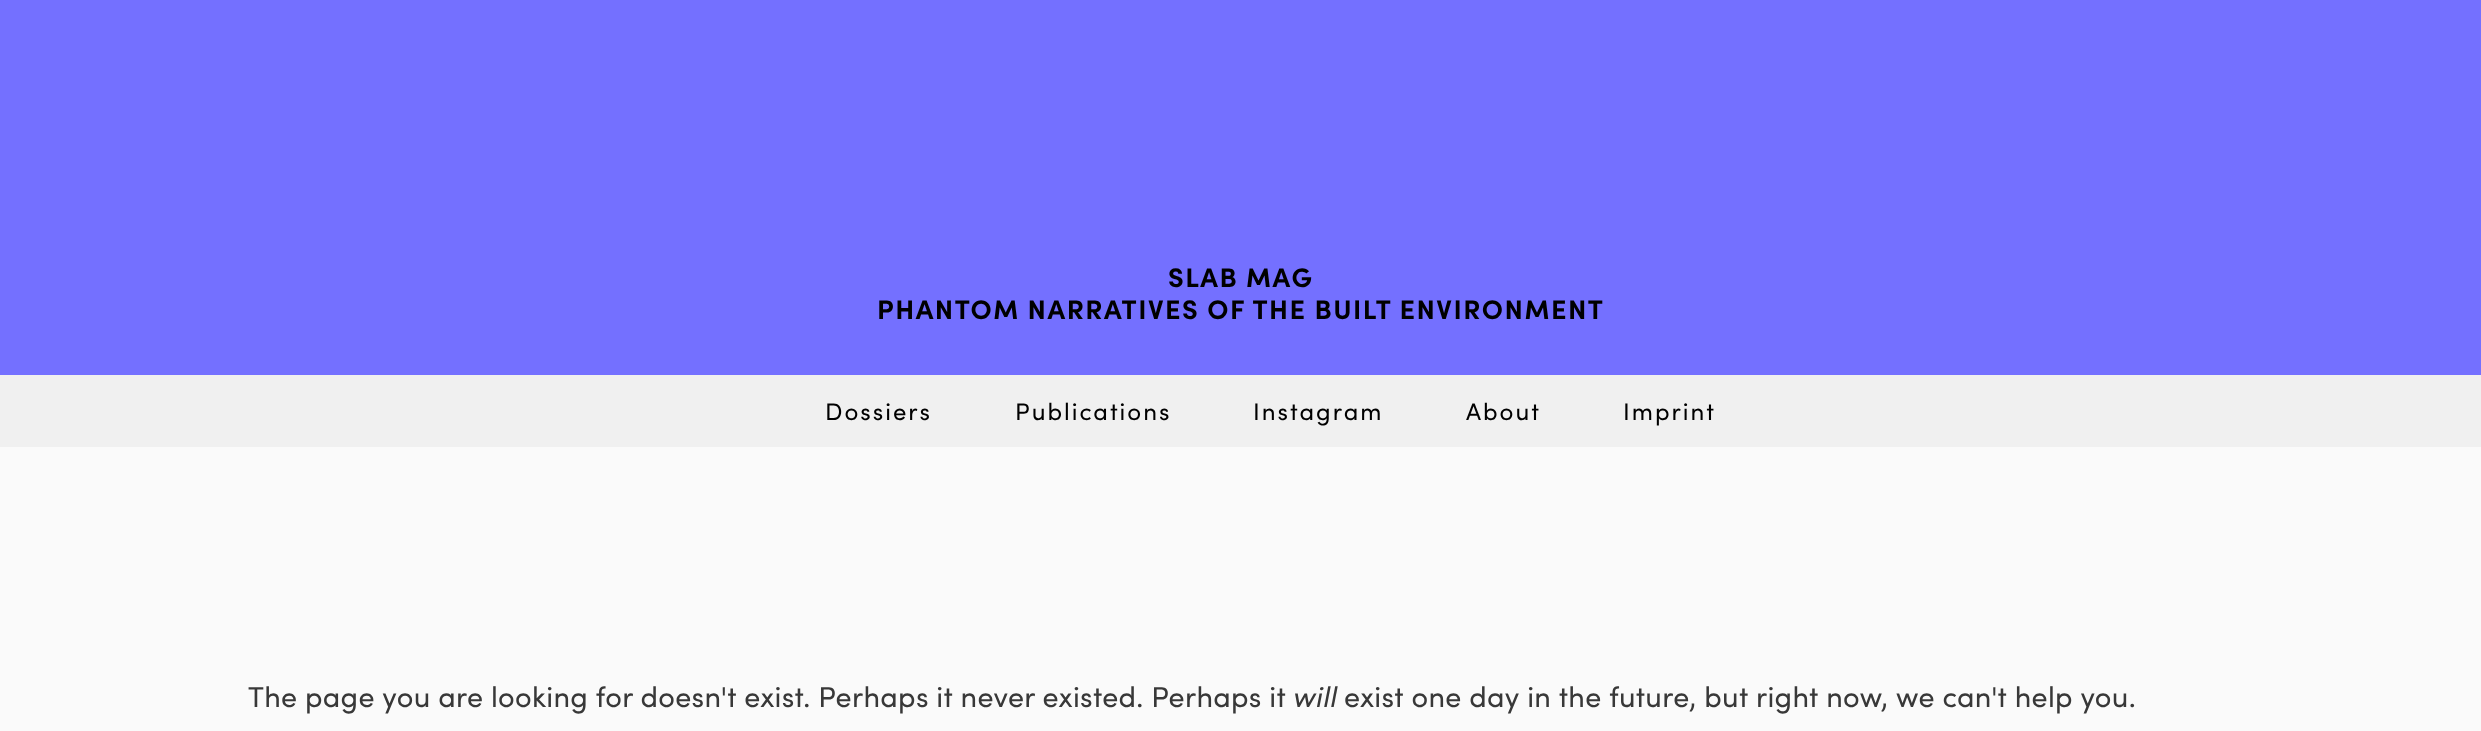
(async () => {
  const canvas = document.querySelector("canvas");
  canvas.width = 2481;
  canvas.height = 731;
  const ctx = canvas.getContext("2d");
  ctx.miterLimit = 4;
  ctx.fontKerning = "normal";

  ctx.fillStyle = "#fafafa";
  ctx.fillRect(0, 0, 2481, 731);
  ctx.fillStyle = "#7470ff";
  ctx.fillRect(0, 0, 2481, 375);
  ctx.fillStyle = "#f0f0f0";
  ctx.fillRect(0, 375, 2481, 72);
  ctx.letterSpacing = "1.5px";
  ctx.font = "bold 27px Sofia";
  ctx.fillStyle = "#000000";
  ctx.fillText("SLAB MAG", 1168, 287);
  ctx.fillText("PHANTOM NARRATIVES OF THE BUILT ENVIRONMENT", 877, 319);
  ctx.letterSpacing = "2px";
  ctx.font = "24px Sofia";
  for (const [text, x, y] of [
    ["Dossiers", 825, 420],
    ["Publications", 1015, 420],
    ["Instagram", 1253, 420],
    ["About", 1466, 420],
    ["Imprint", 1623, 420],
  ]) {
    ctx.fillText(text, x, y);
  }
  ctx.letterSpacing = "0.3px";
  ctx.font = "28.8px Sofia";
  ctx.fillStyle = "#383838";
  ctx.fillText("The page you are looking for doesn't exist. Perhaps it never existed. Perhaps it", 248, 707);
  ctx.font = "italic 28.8px Sofia";
  ctx.fillText("will", 1292, 707);
  ctx.font = "28.8px Sofia";
  ctx.fillText("exist one day in the future, but right now, we can't help you.", 1344, 707);
})();
